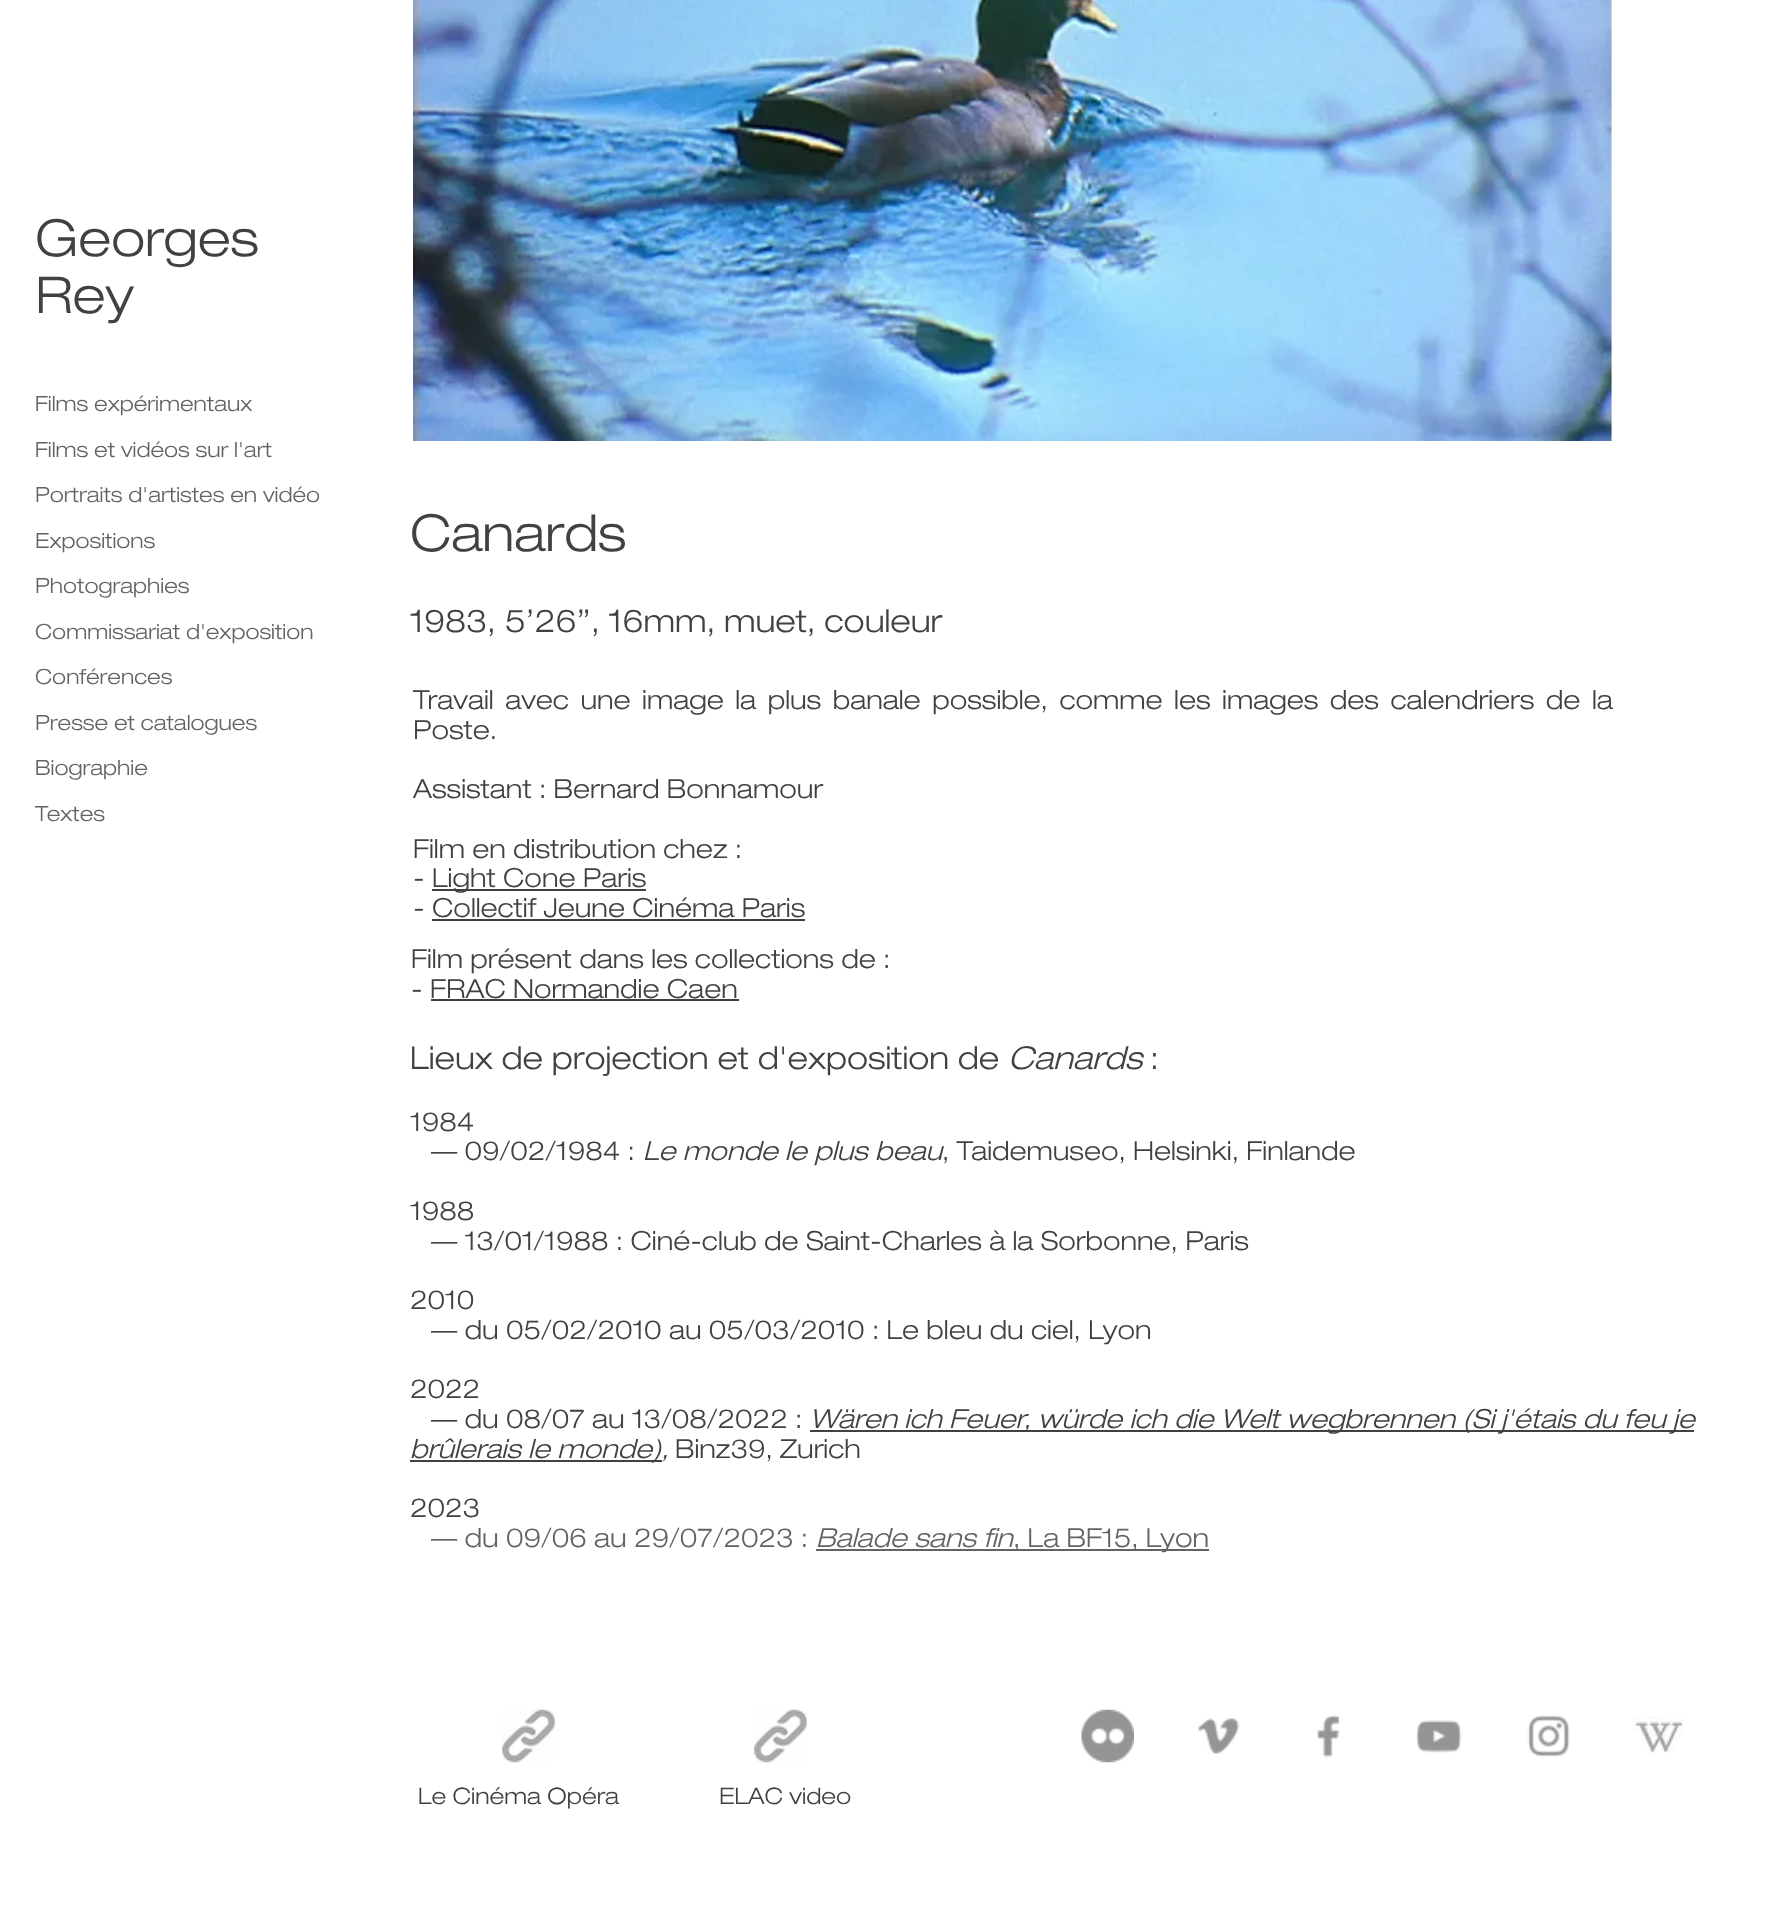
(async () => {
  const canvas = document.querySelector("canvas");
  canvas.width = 1773;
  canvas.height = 1919;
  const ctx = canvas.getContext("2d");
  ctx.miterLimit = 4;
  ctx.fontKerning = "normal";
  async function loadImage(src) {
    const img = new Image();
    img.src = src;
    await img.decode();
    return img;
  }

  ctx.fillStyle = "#ffffff";
  ctx.fillRect(0, 0, 1773, 1919);
  ctx.drawImage(await loadImage("img/1.png"), 413, 0, 1199, 441);
  for (const [x, y, w, h, color] of [
    [432, 889, 214, 2, "#414141"],
    [432, 919, 373, 2, "#414141"],
    [431, 999, 308, 2, "#414141"],
    [810, 1430, 884, 2, "#414141"],
    [410, 1460, 252, 2, "#414141"],
    [816, 1549, 393, 2, "#636363"],
  ]) {
    ctx.fillStyle = color;
    ctx.fillRect(x, y, w, h);
  }
  ctx.drawImage(await loadImage("img/2.png"), 502, 1709, 53, 54);
  ctx.drawImage(await loadImage("img/3.png"), 754, 1709, 53, 54);
  ctx.drawImage(await loadImage("img/4.png"), 1081, 1709, 53, 54);
  ctx.drawImage(await loadImage("img/5.png"), 1197, 1718, 43, 36);
  ctx.drawImage(await loadImage("img/6.png"), 1317, 1715, 23, 43);
  ctx.drawImage(await loadImage("img/7.png"), 1416, 1720, 46, 33);
  ctx.drawImage(await loadImage("img/8.png"), 1527, 1715, 43, 43);
  ctx.drawImage(await loadImage("img/9.png"), 1633, 1716, 50, 37);
  ctx.font = "300 50.75px Helvetica Neue";
  ctx.fillStyle = "#414141";
  ctx.fillText("Georges", 35, 256);
  ctx.fillText("Rey", 35, 313);
  ctx.font = "300 21px Helvetica Neue";
  ctx.fillStyle = "#636363";
  for (const [text, x, y] of [
    ["Films expérimentaux", 35, 411],
    ["Films et vidéos sur l'art", 35, 457],
    ["Portraits d'artistes en vidéo", 35, 502],
    ["Expositions", 35, 548],
    ["Photographies", 35, 593],
    ["Commissariat d'exposition", 35, 639],
    ["Conférences", 35, 684],
    ["Presse et catalogues", 35, 730],
    ["Biographie", 35, 775],
    ["Textes", 35, 821],
  ]) {
    ctx.fillText(text, x, y);
  }
  ctx.font = "300 50.75px Helvetica Neue";
  ctx.fillStyle = "#414141";
  ctx.fillText("Canards", 410, 551);
  ctx.font = "300 31.5px Helvetica Neue";
  ctx.fillText("1983, 5’26’’, 16mm, muet, couleur", 410, 632);
  ctx.wordSpacing = "4.25px";
  ctx.font = "300 26.25px Helvetica Neue";
  ctx.fillText("Travail avec une image la plus banale possible, comme les images des calendriers de la", 413, 709);
  ctx.wordSpacing = "0px";
  for (const [text, x, y] of [
    ["Poste.", 413, 739],
    ["Assistant : Bernard Bonnamour", 413, 798],
    ["Film en distribution chez :", 413, 858],
    ["-", 413, 887],
    ["Light Cone Paris", 432, 887],
    ["- Collectif Jeune Cinéma Paris", 413, 917],
    ["Film présent dans les collections de :", 411, 968],
    ["- FRAC Normandie Caen", 411, 998],
  ]) {
    ctx.fillText(text, x, y);
  }
  ctx.font = "300 31.5px Helvetica Neue";
  ctx.fillText("Lieux de projection et d'exposition de", 410, 1069);
  ctx.font = "italic 300 31.5px Helvetica Neue";
  ctx.fillText("Canards", 1008, 1069);
  ctx.font = "300 31.5px Helvetica Neue";
  ctx.fillText(":", 1150, 1069);
  ctx.font = "300 26.25px Helvetica Neue";
  ctx.fillText("1984", 410, 1131);
  ctx.fillText("— 09/02/1984 :", 431, 1160);
  ctx.font = "italic 300 26.25px Helvetica Neue";
  ctx.fillText("Le monde le plus beau", 643, 1160);
  ctx.font = "300 26.25px Helvetica Neue";
  for (const [text, x, y] of [
    [", Taidemuseo, Helsinki, Finlande", 942, 1160],
    ["1988", 410, 1220],
    ["— 13/01/1988 : Ciné-club de Saint-Charles à la Sorbonne, Paris", 431, 1250],
    ["2010", 410, 1309],
    ["— du 05/02/2010 au 05/03/2010 : Le bleu du ciel, Lyon", 431, 1339],
    ["2022", 410, 1398],
    ["— du 08/07 au 13/08/2022 :", 431, 1428],
  ]) {
    ctx.fillText(text, x, y);
  }
  ctx.font = "italic 300 26.25px Helvetica Neue";
  ctx.fillText("Wären ich Feuer, würde ich die Welt wegbrennen (Si j'étais du feu je", 810, 1428);
  ctx.fillText("brûlerais le monde),", 410, 1458);
  ctx.font = "300 26.25px Helvetica Neue";
  ctx.fillText("Binz39, Zurich", 675, 1458);
  ctx.fillText("2023", 410, 1517);
  ctx.font = "300 26.25px 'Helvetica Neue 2'";
  ctx.fillStyle = "#636363";
  ctx.fillText("— du 09/06 au 29/07/2023 :", 431, 1547);
  ctx.font = "italic 300 26.25px 'Helvetica Neue 2'";
  ctx.fillText("Balade sans fin", 816, 1547);
  ctx.font = "300 26.25px 'Helvetica Neue 2'";
  ctx.fillText(", La BF15, Lyon", 1013, 1547);
  ctx.font = "300 22.75px Helvetica Neue";
  ctx.fillStyle = "#414141";
  ctx.fillText("Le Cinéma Opéra", 418, 1804);
  ctx.fillText("ELAC video", 719, 1804);
})();
